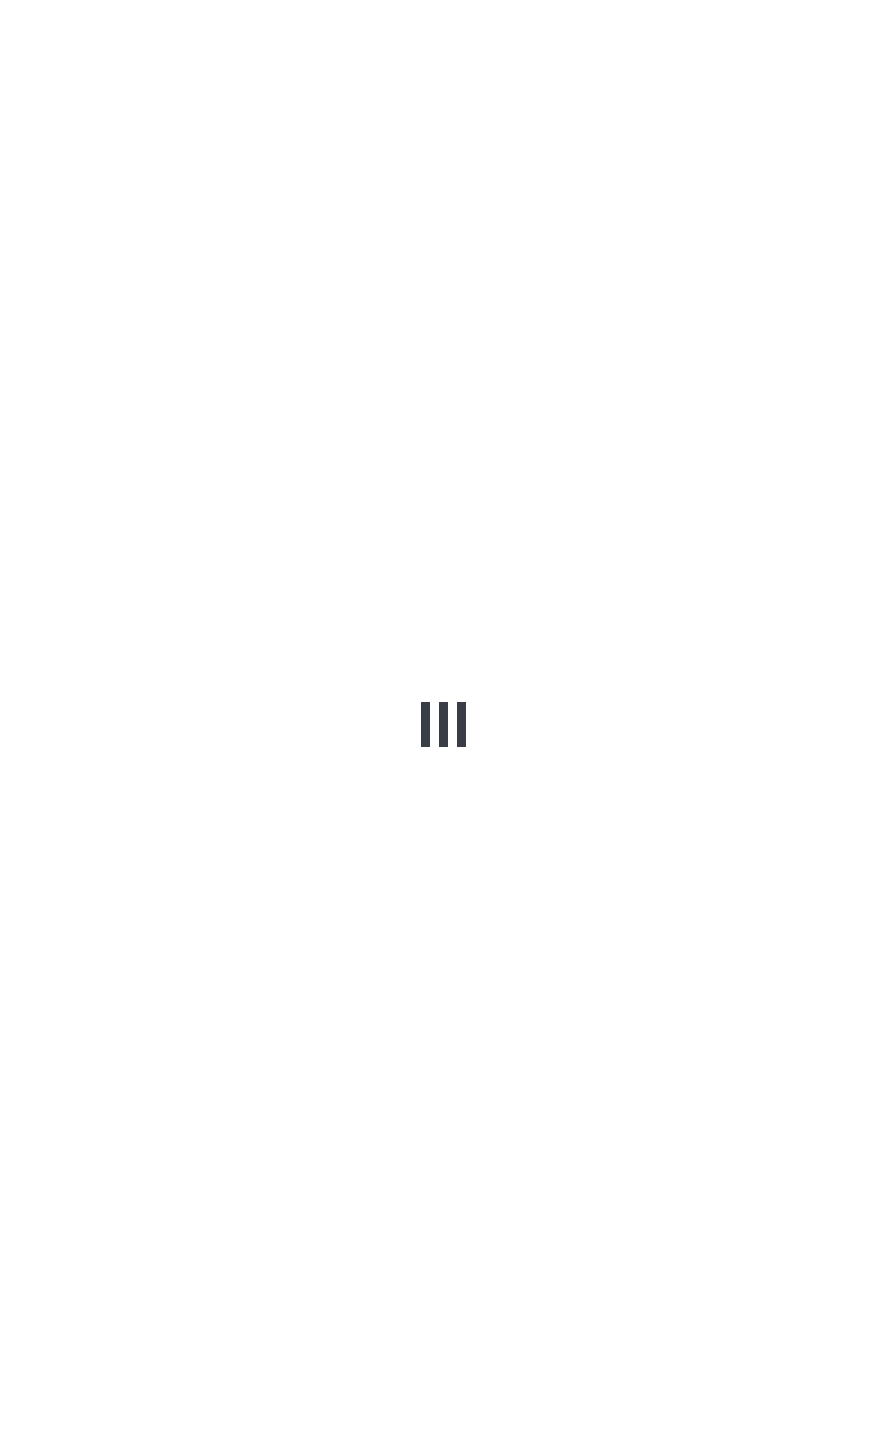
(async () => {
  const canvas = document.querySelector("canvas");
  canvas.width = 886;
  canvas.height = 1448;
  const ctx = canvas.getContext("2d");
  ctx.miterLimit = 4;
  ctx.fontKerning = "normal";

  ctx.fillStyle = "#ffffff";
  ctx.fillRect(0, 0, 886, 1448);
  for (const [x, y, w, h, color] of [
    [457, 702, 9, 45, "#393e46"],
    [439, 702, 9, 45, "#393e46"],
    [421, 702, 9, 45, "#393e46"],
  ]) {
    ctx.fillStyle = color;
    ctx.fillRect(x, y, w, h);
  }
})();
